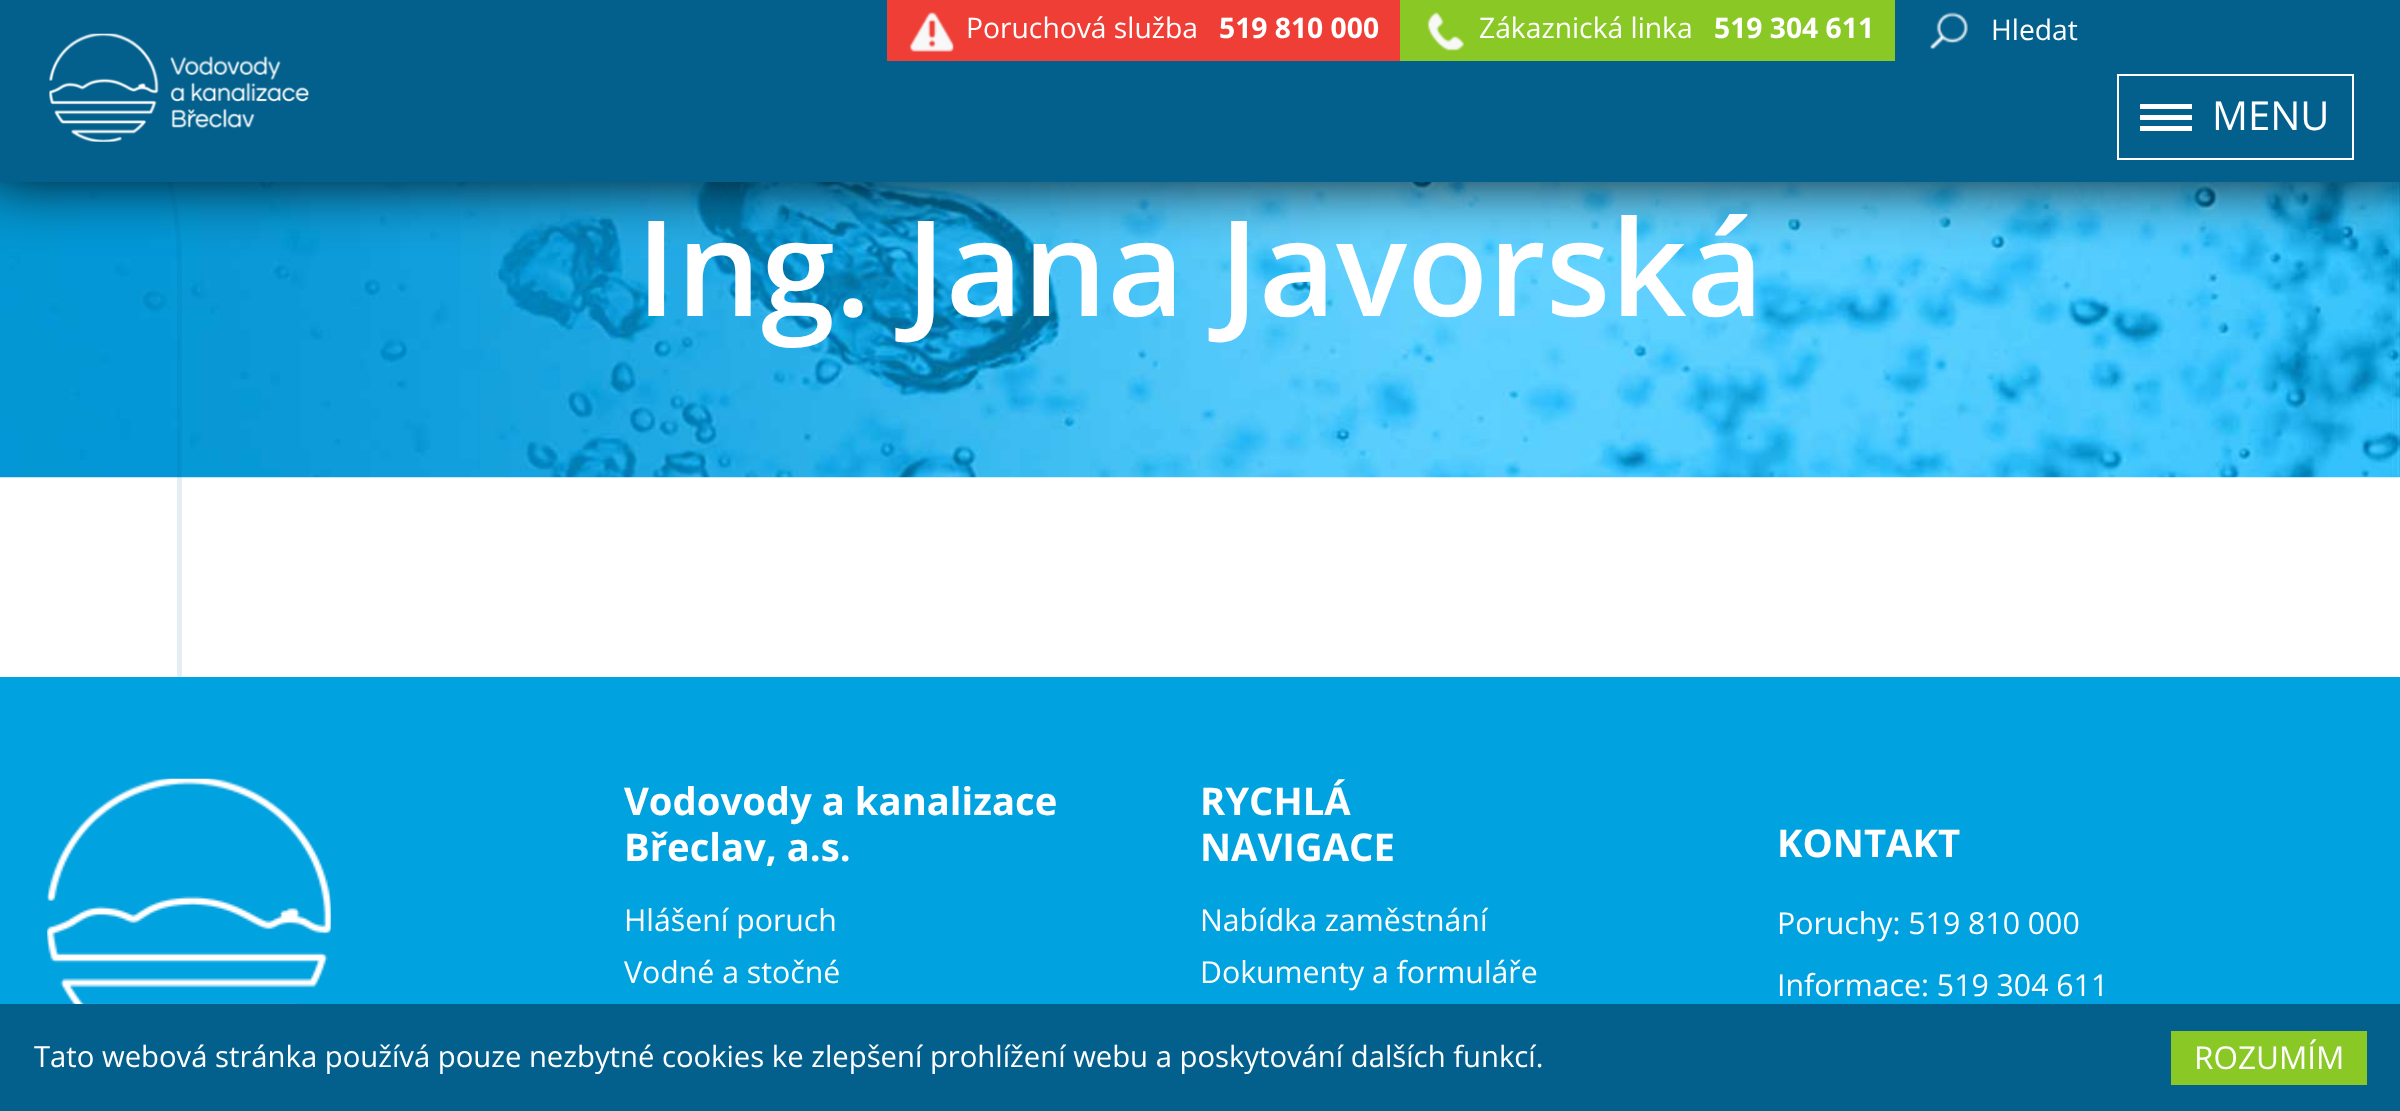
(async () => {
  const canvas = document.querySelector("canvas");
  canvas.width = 2400;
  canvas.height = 1111;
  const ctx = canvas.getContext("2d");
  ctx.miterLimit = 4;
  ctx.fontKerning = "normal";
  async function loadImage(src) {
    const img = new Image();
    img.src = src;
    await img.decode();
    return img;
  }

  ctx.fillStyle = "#ffffff";
  ctx.fillRect(0, 0, 2400, 1111);
  ctx.drawImage(await loadImage("img/5.png"), 0, 182, 2400, 296);
  ctx.beginPath();
  ctx.roundRect(-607.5, -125.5, 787, 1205, 602.5);
  ctx.strokeStyle = "rgba(3, 96, 141, 0.1)";
  ctx.lineWidth = 5;
  ctx.stroke();
  ctx.fillStyle = "#000000";
  ctx.filter = "blur(32.5px)";
  ctx.beginPath();
  ctx.rect(-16, -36, 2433, 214);
  ctx.fill();
  ctx.filter = "none";
  ctx.fillStyle = "#03608d";
  ctx.fillRect(0, 0, 2400, 182);
  ctx.fillStyle = "#ef3e36";
  ctx.fillRect(887, 0, 513, 61);
  ctx.drawImage(await loadImage("img/1.png"), 909, 12, 45, 40);
  ctx.fillStyle = "#8ac826";
  ctx.fillRect(1400, 0, 495, 61);
  ctx.drawImage(await loadImage("img/2.png"), 1427, 12, 37, 39);
  ctx.drawImage(await loadImage("img/3.png"), 1929, 12, 39, 38);
  ctx.drawImage(await loadImage("img/4.png"), 49, 33, 260, 109);
  ctx.strokeStyle = "#ffffff";
  ctx.lineWidth = 2;
  ctx.strokeRect(2118, 75, 235, 84);
  for (const [x, y, w, h, color] of [
    [2140, 104, 52, 5, "#ffffff"],
    [2140, 115, 52, 5, "#ffffff"],
    [2140, 126, 52, 5, "#ffffff"],
    [0, 677, 2400, 327, "#00a2e0"],
  ]) {
    ctx.fillStyle = color;
    ctx.fillRect(x, y, w, h);
  }
  ctx.drawImage(await loadImage("img/6.png"), 47, 778, 284, 226);
  ctx.fillStyle = "#03608d";
  ctx.fillRect(0, 1004, 2400, 107);
  ctx.fillStyle = "#89c825";
  ctx.fillRect(2171, 1031, 196, 54);
  ctx.font = "28.25px Open Sans";
  ctx.fillStyle = "#ffffff";
  ctx.fillText("Poruchová služba", 966, 38);
  ctx.font = "bold 28.25px Open Sans";
  ctx.fillText("519 810 000", 1219, 38);
  ctx.font = "28.25px Open Sans";
  ctx.fillText("Zákaznická linka", 1479, 38);
  ctx.font = "bold 28.25px Open Sans";
  ctx.fillText("519 304 611", 1714, 38);
  ctx.font = "28.25px Open Sans";
  ctx.fillText("Hledat", 1991, 40);
  ctx.font = "40px Open Sans";
  ctx.fillText("MENU", 2212, 130);
  ctx.font = "600 133px Open Sans";
  ctx.fillText("Ing. Jana Javorská", 636, 316);
  ctx.font = "bold 38.25px Open Sans";
  ctx.fillText("Vodovody a kanalizace", 624, 815);
  ctx.fillText("Břeclav, a.s.", 624, 861);
  ctx.font = "30.25px Open Sans";
  ctx.fillText("Hlášení poruch", 624, 931);
  ctx.fillText("Vodné a stočné", 624, 983);
  ctx.font = "bold 38.25px Open Sans";
  ctx.fillText("RYCHLÁ", 1200, 815);
  ctx.fillText("NAVIGACE", 1200, 861);
  ctx.font = "30.25px Open Sans";
  ctx.fillText("Nabídka zaměstnání", 1200, 931);
  ctx.fillText("Dokumenty a formuláře", 1200, 983);
  ctx.font = "bold 38.25px Open Sans";
  ctx.fillText("KONTAKT", 1777, 857);
  ctx.font = "30.25px Open Sans";
  ctx.fillText("Poruchy: 519 810 000", 1777, 934);
  ctx.fillText("Informace: 519 304 611", 1777, 996);
  ctx.font = "29.25px Open Sans";
  ctx.fillText("Tato webová stránka používá pouze nezbytné cookies ke zlepšení prohlížení webu a poskytování dalších funkcí.", 34, 1067);
  ctx.font = "31.5px Open Sans";
  ctx.fillText("ROZUMÍM", 2194, 1069);
})();
